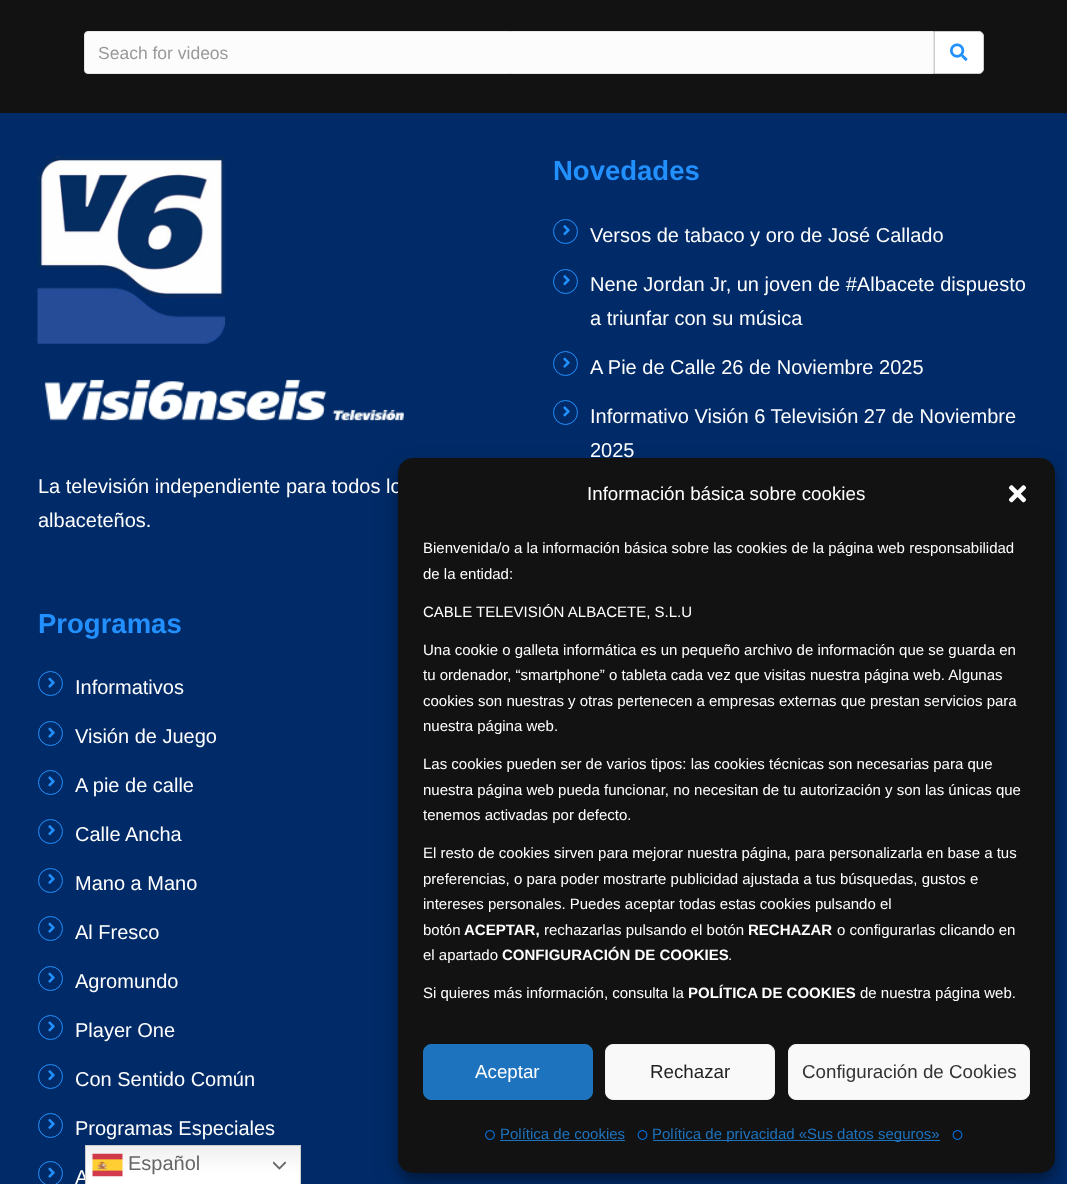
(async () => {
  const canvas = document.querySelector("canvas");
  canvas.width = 1067;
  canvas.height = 1184;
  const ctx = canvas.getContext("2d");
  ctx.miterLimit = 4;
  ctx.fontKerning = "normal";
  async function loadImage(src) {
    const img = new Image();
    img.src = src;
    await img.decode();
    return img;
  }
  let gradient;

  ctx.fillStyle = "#121212";
  ctx.fillRect(0, 0, 1067, 1184);
  ctx.fillStyle = "#fcfcfc";
  ctx.beginPath();
  ctx.roundRect(84.5, 31.5, 849, 42, [3.5, 0, 0, 3.5]);
  ctx.fill();
  ctx.strokeStyle = "#e7e7e7";
  ctx.stroke();
  ctx.fillStyle = "#ffffff";
  ctx.beginPath();
  ctx.roundRect(934.5, 31.5, 49, 42, [0, 4.5, 4.5, 0]);
  ctx.fill();
  ctx.strokeStyle = "#cccccc";
  ctx.stroke();
  ctx.drawImage(await loadImage("img/1.png"), 950, 43, 18, 18);
  ctx.fillStyle = "#002b68";
  ctx.fillRect(0, 113, 1067, 1071);
  ctx.beginPath();
  ctx.arc(565.5, 231.5, 12, 0, Math.PI * 2);
  ctx.strokeStyle = "#2291ff";
  ctx.stroke();
  ctx.drawImage(await loadImage("img/2.png"), 563, 225, 7, 11);
  ctx.beginPath();
  ctx.arc(565.5, 281.5, 12, 0, Math.PI * 2);
  ctx.stroke();
  ctx.drawImage(await loadImage("img/2.png"), 563, 275, 7, 11);
  ctx.beginPath();
  ctx.arc(565.5, 363.5, 12, 0, Math.PI * 2);
  ctx.stroke();
  ctx.drawImage(await loadImage("img/3.png"), 563, 357, 7, 11);
  ctx.beginPath();
  ctx.arc(565.5, 412.5, 12, 0, Math.PI * 2);
  ctx.stroke();
  ctx.drawImage(await loadImage("img/4.png"), 563, 406, 7, 11);
  ctx.drawImage(await loadImage("img/5.png"), 37, 156, 188, 188);
  ctx.drawImage(await loadImage("img/6.png"), 44, 379, 360, 42);
  ctx.beginPath();
  ctx.arc(50.5, 683.5, 12, 0, Math.PI * 2);
  ctx.stroke();
  ctx.drawImage(await loadImage("img/3.png"), 48, 677, 7, 11);
  ctx.beginPath();
  ctx.arc(50.5, 733.5, 12, 0, Math.PI * 2);
  ctx.stroke();
  ctx.drawImage(await loadImage("img/3.png"), 48, 727, 7, 11);
  ctx.beginPath();
  ctx.arc(50.5, 782.5, 12, 0, Math.PI * 2);
  ctx.stroke();
  ctx.drawImage(await loadImage("img/4.png"), 48, 776, 7, 11);
  ctx.beginPath();
  ctx.arc(50.5, 831.5, 12, 0, Math.PI * 2);
  ctx.stroke();
  ctx.drawImage(await loadImage("img/2.png"), 48, 825, 7, 11);
  ctx.beginPath();
  ctx.arc(50.5, 880.5, 12, 0, Math.PI * 2);
  ctx.stroke();
  ctx.drawImage(await loadImage("img/7.png"), 48, 873, 7, 11);
  ctx.beginPath();
  ctx.arc(50.5, 928.5, 12, 0, Math.PI * 2);
  ctx.stroke();
  ctx.drawImage(await loadImage("img/3.png"), 48, 922, 7, 11);
  ctx.beginPath();
  ctx.arc(50.5, 978.5, 12, 0, Math.PI * 2);
  ctx.stroke();
  ctx.drawImage(await loadImage("img/3.png"), 48, 972, 7, 11);
  ctx.beginPath();
  ctx.arc(50.5, 1027.5, 12, 0, Math.PI * 2);
  ctx.stroke();
  ctx.drawImage(await loadImage("img/4.png"), 48, 1021, 7, 11);
  ctx.beginPath();
  ctx.arc(50.5, 1076.5, 12, 0, Math.PI * 2);
  ctx.stroke();
  ctx.drawImage(await loadImage("img/2.png"), 48, 1070, 7, 11);
  ctx.beginPath();
  ctx.arc(50.5, 1125.5, 12, 0, Math.PI * 2);
  ctx.stroke();
  ctx.drawImage(await loadImage("img/7.png"), 48, 1118, 7, 11);
  ctx.beginPath();
  ctx.arc(50.5, 1173.5, 12, 0, Math.PI * 2);
  ctx.stroke();
  ctx.drawImage(await loadImage("img/3.png"), 48, 1167, 7, 11);
  ctx.fillStyle = "rgba(0, 0, 0, 0.23)";
  ctx.filter = "blur(4px)";
  ctx.beginPath();
  ctx.roundRect(398, 465, 657, 715, 15);
  ctx.fill();
  ctx.filter = "none";
  ctx.fillStyle = "rgba(0, 0, 0, 0.19)";
  ctx.filter = "blur(12.5px)";
  ctx.beginPath();
  ctx.roundRect(398, 470, 657, 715, 15);
  ctx.fill();
  ctx.filter = "none";
  ctx.font = "17.5px Liberation Sans";
  ctx.fillStyle = "#999999";
  ctx.fillText("Seach for videos", 98, 59);
  ctx.font = "bold 27.5px Liberation Sans";
  ctx.fillStyle = "#2291ff";
  ctx.fillText("Novedades", 553, 180);
  ctx.font = "20px Liberation Sans";
  ctx.fillStyle = "#ffffff";
  for (const [text, x, y] of [
    ["Versos de tabaco y oro de José Callado", 590, 242],
    ["Nene Jordan Jr, un joven de #Albacete dispuesto", 590, 291],
    ["a triunfar con su música", 590, 325],
    ["A Pie de Calle 26 de Noviembre 2025", 590, 374],
    ["Informativo Visión 6 Televisión 27 de Noviembre", 590, 423],
    ["2025", 590, 457],
    ["La televisión independiente para todos lo", 38, 493],
    ["albaceteños.", 38, 527],
  ]) {
    ctx.fillText(text, x, y);
  }
  ctx.font = "bold 27.5px Liberation Sans";
  ctx.fillStyle = "#2291ff";
  ctx.fillText("Programas", 38, 633);
  ctx.font = "20px Liberation Sans";
  ctx.fillStyle = "#ffffff";
  for (const [text, x, y] of [
    ["Informativos", 75, 694],
    ["Visión de Juego", 75, 743],
    ["A pie de calle", 75, 792],
    ["Calle Ancha", 75, 841],
    ["Mano a Mano", 75, 890],
    ["Al Fresco", 75, 939],
    ["Agromundo", 75, 988],
    ["Player One", 75, 1037],
    ["Con Sentido Común", 75, 1086],
    ["Programas Especiales", 75, 1135],
    ["A", 75, 1184],
  ]) {
    ctx.fillText(text, x, y);
  }
  ctx.fillStyle = "#121212";
  ctx.beginPath();
  ctx.roundRect(398, 458, 657, 715, 15);
  ctx.fill();
  ctx.font = "18.75px Liberation Sans";
  ctx.fillStyle = "#ffffff";
  ctx.fillText("Información básica sobre cookies", 587, 500);
  ctx.drawImage(await loadImage("img/8.png"), 1008, 485, 19, 18);
  ctx.font = "15px Liberation Sans";
  for (const [text, x, y] of [
    ["Bienvenida/o a la información básica sobre las cookies de la página web responsabilidad", 423, 553],
    ["de la entidad:", 423, 579],
    ["CABLE TELEVISIÓN ALBACETE, S.L.U", 423, 617],
    ["Una cookie o galleta informática es un pequeño archivo de información que se guarda en", 423, 655],
    ["tu ordenador, “smartphone” o tableta cada vez que visitas nuestra página web. Algunas", 423, 680],
    ["cookies son nuestras y otras pertenecen a empresas externas que prestan servicios para", 423, 706],
    ["nuestra página web.", 423, 731],
    ["Las cookies pueden ser de varios tipos: las cookies técnicas son necesarias para que", 423, 769],
    ["nuestra página web pueda funcionar, no necesitan de tu autorización y son las únicas que", 423, 795],
    ["tenemos activadas por defecto.", 423, 820],
    ["El resto de cookies sirven para mejorar nuestra página, para personalizarla en base a tus", 423, 858],
    ["preferencias, o para poder mostrarte publicidad ajustada a tus búsquedas, gustos e", 423, 884],
    ["intereses personales. Puedes aceptar todas estas cookies pulsando el", 423, 909],
    ["botón", 423, 935],
  ]) {
    ctx.fillText(text, x, y);
  }
  ctx.font = "bold 15px Liberation Sans";
  ctx.fillText("ACEPTAR,", 464, 935);
  ctx.font = "15px Liberation Sans";
  ctx.fillText("rechazarlas pulsando el botón", 544, 935);
  ctx.font = "bold 15px Liberation Sans";
  ctx.fillText("RECHAZAR", 748, 935);
  ctx.font = "15px Liberation Sans";
  ctx.fillText("o configurarlas clicando en", 837, 935);
  ctx.fillText("el apartado", 423, 960);
  ctx.font = "bold 15px Liberation Sans";
  ctx.fillText("CONFIGURACIÓN DE COOKIES", 502, 960);
  ctx.font = "15px Liberation Sans";
  ctx.fillText(".", 728, 960);
  ctx.fillText("Si quieres más información, consulta la", 423, 998);
  ctx.font = "bold 15px Liberation Sans";
  ctx.fillText("POLÍTICA DE COOKIES", 688, 998);
  ctx.font = "15px Liberation Sans";
  ctx.fillText("de nuestra página web.", 860, 998);
  ctx.fillStyle = "#1e73be";
  ctx.beginPath();
  ctx.roundRect(423.5, 1044.5, 169, 55, 7.5);
  ctx.fill();
  ctx.strokeStyle = "#1e73be";
  ctx.stroke();
  ctx.font = "18.75px Liberation Sans";
  ctx.fillStyle = "#ffffff";
  ctx.fillText("Aceptar", 475, 1078);
  ctx.fillStyle = "#f9f9f9";
  ctx.beginPath();
  ctx.roundRect(605.5, 1044.5, 169, 55, 7.5);
  ctx.fill();
  ctx.strokeStyle = "#f2f2f2";
  ctx.stroke();
  ctx.fillStyle = "#222222";
  ctx.fillText("Rechazar", 650, 1078);
  ctx.fillStyle = "#f9f9f9";
  ctx.beginPath();
  ctx.roundRect(788.5, 1044.5, 241, 55, 7.5);
  ctx.fill();
  ctx.stroke();
  ctx.fillStyle = "#333333";
  ctx.fillText("Configuración de Cookies", 802, 1078);
  ctx.drawImage(await loadImage("img/9.png"), 485, 1130, 10, 10);
  ctx.font = "15px Liberation Sans";
  ctx.fillStyle = "#1e73be";
  ctx.fillText("Política de cookies", 500, 1139);
  ctx.fillRect(500, 1140, 125, 1);
  ctx.drawImage(await loadImage("img/10.png"), 637, 1130, 11, 10);
  ctx.fillRect(653, 1140, 287, 1);
  ctx.fillText("Política de privacidad «Sus datos seguros»", 652, 1139);
  ctx.drawImage(await loadImage("img/10.png"), 952, 1130, 11, 10);
  gradient = ctx.createLinearGradient(193, 1145, 193, 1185);
  gradient.addColorStop(0, "#efefef");
  gradient.addColorStop(0.7, "#ffffff");
  ctx.fillStyle = gradient;
  ctx.fillRect(86, 1146, 214, 38);
  ctx.strokeStyle = "#cccccc";
  ctx.strokeRect(85.5, 1145.5, 215, 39);
  ctx.drawImage(await loadImage("img/11.png"), 92, 1153, 31, 24);
  ctx.font = "20px Liberation Sans";
  ctx.fillStyle = "#666666";
  ctx.fillText("Español", 128, 1170);
  ctx.drawImage(await loadImage("img/12.png"), 273, 1161, 13, 9);
})();
